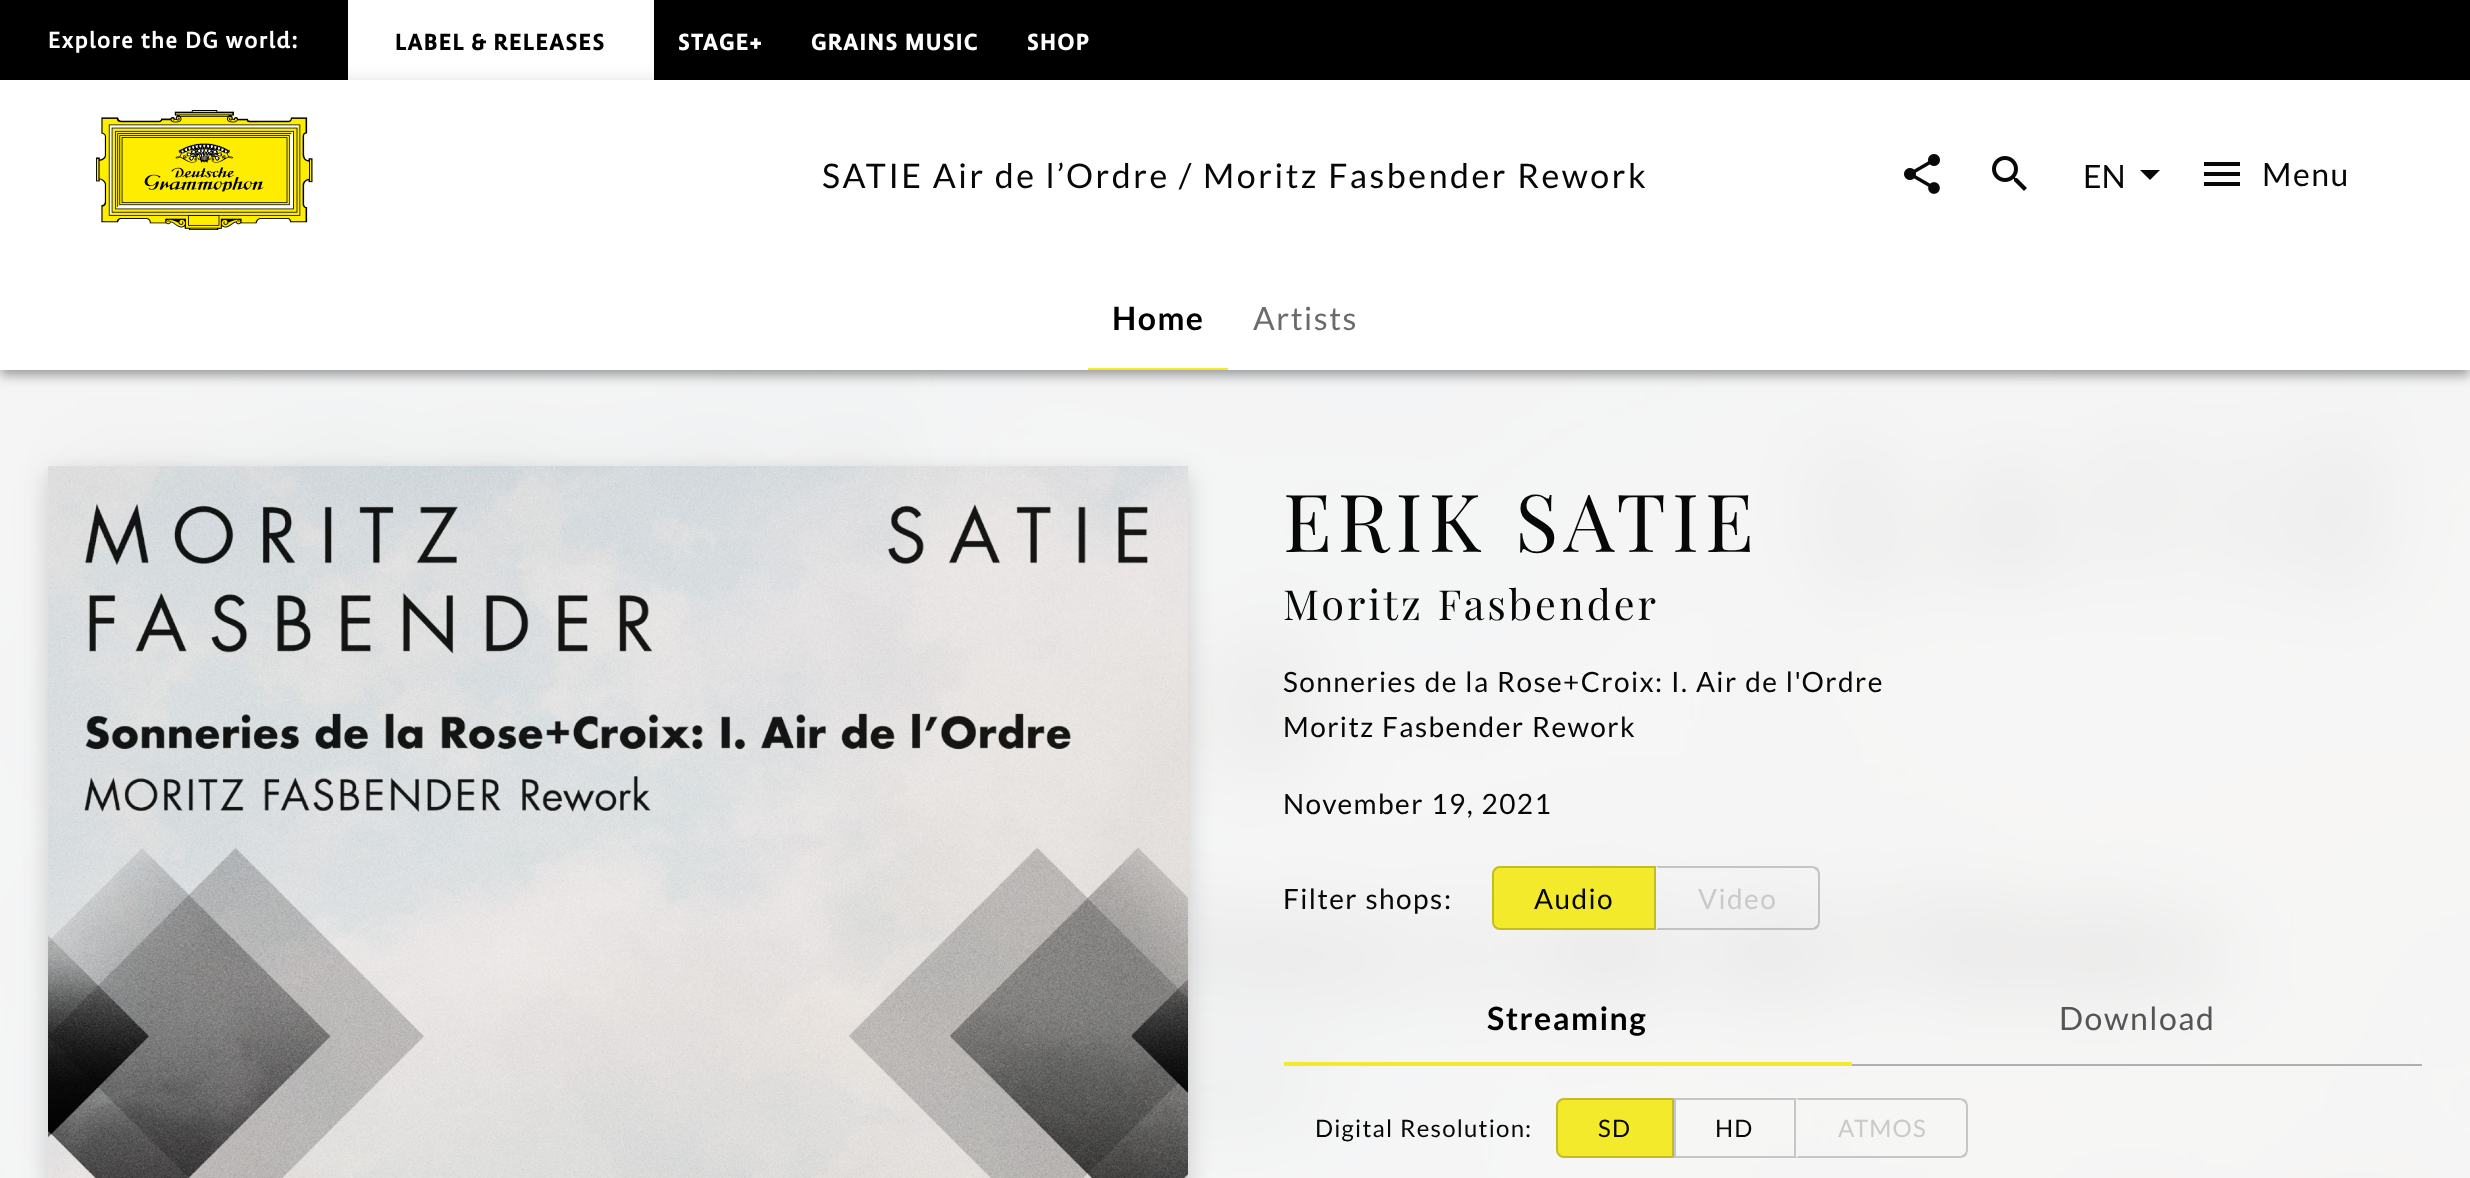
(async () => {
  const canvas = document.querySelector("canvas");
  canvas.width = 2470;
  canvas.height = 1178;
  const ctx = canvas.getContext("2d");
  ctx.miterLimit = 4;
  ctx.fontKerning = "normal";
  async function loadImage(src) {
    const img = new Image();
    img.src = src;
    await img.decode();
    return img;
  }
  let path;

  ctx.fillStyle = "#fafafa";
  ctx.fillRect(0, 0, 2470, 1178);
  ctx.fillStyle = "#000000";
  ctx.fillRect(0, 0, 2470, 80);
  ctx.fillStyle = "#ffffff";
  ctx.fillRect(348, 0, 306, 80);
  ctx.drawImage(await loadImage("img/4.png"), 0, 370, 2470, 808);
  ctx.fillStyle = "rgba(0, 0, 0, 0.12)";
  ctx.filter = "blur(10px)";
  ctx.beginPath();
  ctx.rect(0, 82, 2470, 290);
  ctx.fill();
  ctx.filter = "none";
  ctx.fillStyle = "rgba(0, 0, 0, 0.14)";
  ctx.filter = "blur(5px)";
  ctx.beginPath();
  ctx.rect(0, 88, 2470, 290);
  ctx.fill();
  ctx.filter = "none";
  ctx.fillStyle = "rgba(0, 0, 0, 0.2)";
  ctx.filter = "blur(4px)";
  ctx.beginPath();
  ctx.rect(2, 86, 2466, 286);
  ctx.fill();
  ctx.filter = "none";
  ctx.fillStyle = "#ffffff";
  ctx.fillRect(0, 80, 2470, 290);
  ctx.drawImage(await loadImage("img/1.png"), 96, 110, 217, 120);
  ctx.drawImage(await loadImage("img/2.png"), 1904, 154, 36, 40);
  ctx.drawImage(await loadImage("img/3.png"), 1992, 156, 35, 35);
  ctx.fillStyle = "#080808";
  path = new Path2D("M2140 170L2150 180L2160 170Z");
  ctx.fill(path);
  path = new Path2D("M2204 186H2240V182H2204ZM2204 176H2240V172H2204ZM2204 162V166H2240V162Z");
  ctx.fill(path);
  ctx.fillStyle = "#f3ea2c";
  ctx.fillRect(1088, 368, 140, 2);
  ctx.fillStyle = "rgba(67, 67, 67, 0.23)";
  ctx.filter = "blur(12px)";
  ctx.beginPath();
  ctx.rect(48, 474, 1140, 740);
  ctx.fill();
  ctx.filter = "none";
  ctx.drawImage(await loadImage("img/5.png"), 48, 466, 1140, 712);
  ctx.fillStyle = "#f3ea2c";
  ctx.beginPath();
  ctx.roundRect(1492, 866, 164, 64, [8, 0, 0, 8]);
  ctx.fill();
  ctx.beginPath();
  ctx.roundRect(1493, 867, 162, 62, [7, 0, 0, 7]);
  ctx.strokeStyle = "rgba(0, 8, 13, 0.2)";
  ctx.lineWidth = 2;
  ctx.stroke();
  ctx.fillStyle = "#c4c5c6";
  path = new Path2D("M1656 866L1658 868H1813L1816 870L1818 868C1816 867 1814 866 1812 866Z");
  ctx.fill(path);
  ctx.fillStyle = "rgba(0, 8, 13, 0.2)";
  path = new Path2D("M1820 922V874C1820 872 1819 870 1818 868L1816 870C1817 871 1818 872 1818 874V922C1818 924 1817 925 1816 926L1818 928C1819 926 1820 924 1820 922Z");
  ctx.fill(path);
  path = new Path2D("M1812 930C1814 930 1816 929 1818 928L1816 926L1813 928H1658L1656 930Z");
  ctx.fill(path);
  ctx.fillStyle = "#adafb0";
  ctx.fillRect(1852, 1064, 570, 2);
  ctx.fillStyle = "#f3ea2c";
  ctx.fillRect(1284, 1062, 568, 4);
  ctx.beginPath();
  ctx.roundRect(1556, 1098, 118, 60, [8, 0, 0, 8]);
  ctx.fill();
  ctx.beginPath();
  ctx.roundRect(1557, 1099, 116, 58, [7, 0, 0, 7]);
  ctx.stroke();
  ctx.strokeStyle = "#c5c7c7";
  ctx.strokeRect(1675, 1099, 120, 58);
  ctx.fillStyle = "#c6c7c7";
  path = new Path2D("M1796 1098L1798 1100H1961L1964 1102L1966 1100C1964 1099 1962 1098 1960 1098Z");
  ctx.fill(path);
  ctx.fillStyle = "rgba(0, 8, 13, 0.2)";
  path = new Path2D("M1968 1150V1106C1968 1104 1967 1102 1966 1100L1964 1102C1965 1103 1966 1104 1966 1106V1150C1966 1152 1965 1153 1964 1154L1966 1156C1967 1154 1968 1152 1968 1150Z");
  ctx.fill(path);
  path = new Path2D("M1960 1158C1962 1158 1964 1157 1966 1156L1964 1154L1961 1156H1798L1796 1158Z");
  ctx.fill(path);
  ctx.letterSpacing = "1.2px";
  ctx.font = "500 24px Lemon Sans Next";
  ctx.fillStyle = "#ffffff";
  ctx.fillText("Explore the DG world:", 48, 48);
  ctx.font = "bold 24px Lemon Sans Next";
  ctx.fillStyle = "#000000";
  ctx.fillText("LABEL & RELEASES", 395, 50);
  ctx.fillStyle = "#ffffff";
  for (const [text, x, y] of [
    ["STAGE+", 678, 50],
    ["GRAINS MUSIC", 811, 50],
    ["SHOP", 1027, 50],
  ]) {
    ctx.fillText(text, x, y);
  }
  ctx.letterSpacing = "2.55px";
  ctx.font = "33.9px Lato";
  ctx.fillStyle = "#070707";
  ctx.fillText("SATIE Air de l’Ordre / Moritz Fasbender Rework", 822, 188);
  ctx.letterSpacing = "0px";
  ctx.font = "32px Lato";
  ctx.fillText("EN", 2083, 188);
  ctx.letterSpacing = "1.5px";
  ctx.fillText("Menu", 2262, 186);
  ctx.font = "bold 32px Lato";
  ctx.fillStyle = "#000000";
  ctx.fillText("Home", 1112, 330);
  ctx.font = "32px Lato";
  ctx.fillStyle = "#6b6b6b";
  ctx.fillText("Artists", 1253, 330);
  ctx.letterSpacing = "6px";
  ctx.wordSpacing = "2px";
  ctx.font = "80px Playfair Display";
  ctx.fillStyle = "#070707";
  ctx.fillText("ERIK SATIE", 1283, 552);
  ctx.letterSpacing = "2.9px";
  ctx.wordSpacing = "1px";
  ctx.font = "41.5px Playfair Display";
  ctx.fillText("Moritz Fasbender", 1283, 620);
  ctx.letterSpacing = "1.4px";
  ctx.wordSpacing = "0.75px";
  ctx.font = "28px Lato";
  for (const [text, x, y] of [
    ["Sonneries de la Rose+Croix: I. Air de l'Ordre", 1283, 692],
    ["Moritz Fasbender Rework", 1283, 737],
    ["November 19, 2021", 1283, 814],
    ["Filter shops", 1283, 909],
  ]) {
    ctx.fillText(text, x, y);
  }
  ctx.wordSpacing = "0px";
  ctx.fillText(":", 1444, 909);
  ctx.fillStyle = "#070701";
  ctx.fillText("Audio", 1534, 909);
  ctx.fillStyle = "#cacaca";
  ctx.fillText("Video", 1698, 909);
  ctx.letterSpacing = "1.5px";
  ctx.font = "bold 32px Lato";
  ctx.fillStyle = "#000000";
  ctx.fillText("Streaming", 1487, 1030);
  ctx.font = "32px Lato";
  ctx.fillStyle = "#565555";
  ctx.fillText("Download", 2059, 1030);
  ctx.letterSpacing = "1.2px";
  ctx.wordSpacing = "1px";
  ctx.font = "24px Lato";
  ctx.fillStyle = "#070707";
  ctx.fillText("Digital Resolution", 1315, 1137);
  ctx.wordSpacing = "0px";
  ctx.fillText(":", 1525, 1137);
  ctx.fillStyle = "#070701";
  ctx.fillText("SD", 1598, 1137);
  ctx.fillStyle = "#070707";
  ctx.fillText("HD", 1715, 1137);
  ctx.fillStyle = "#cacaca";
  ctx.fillText("ATMOS", 1838, 1137);
})();
